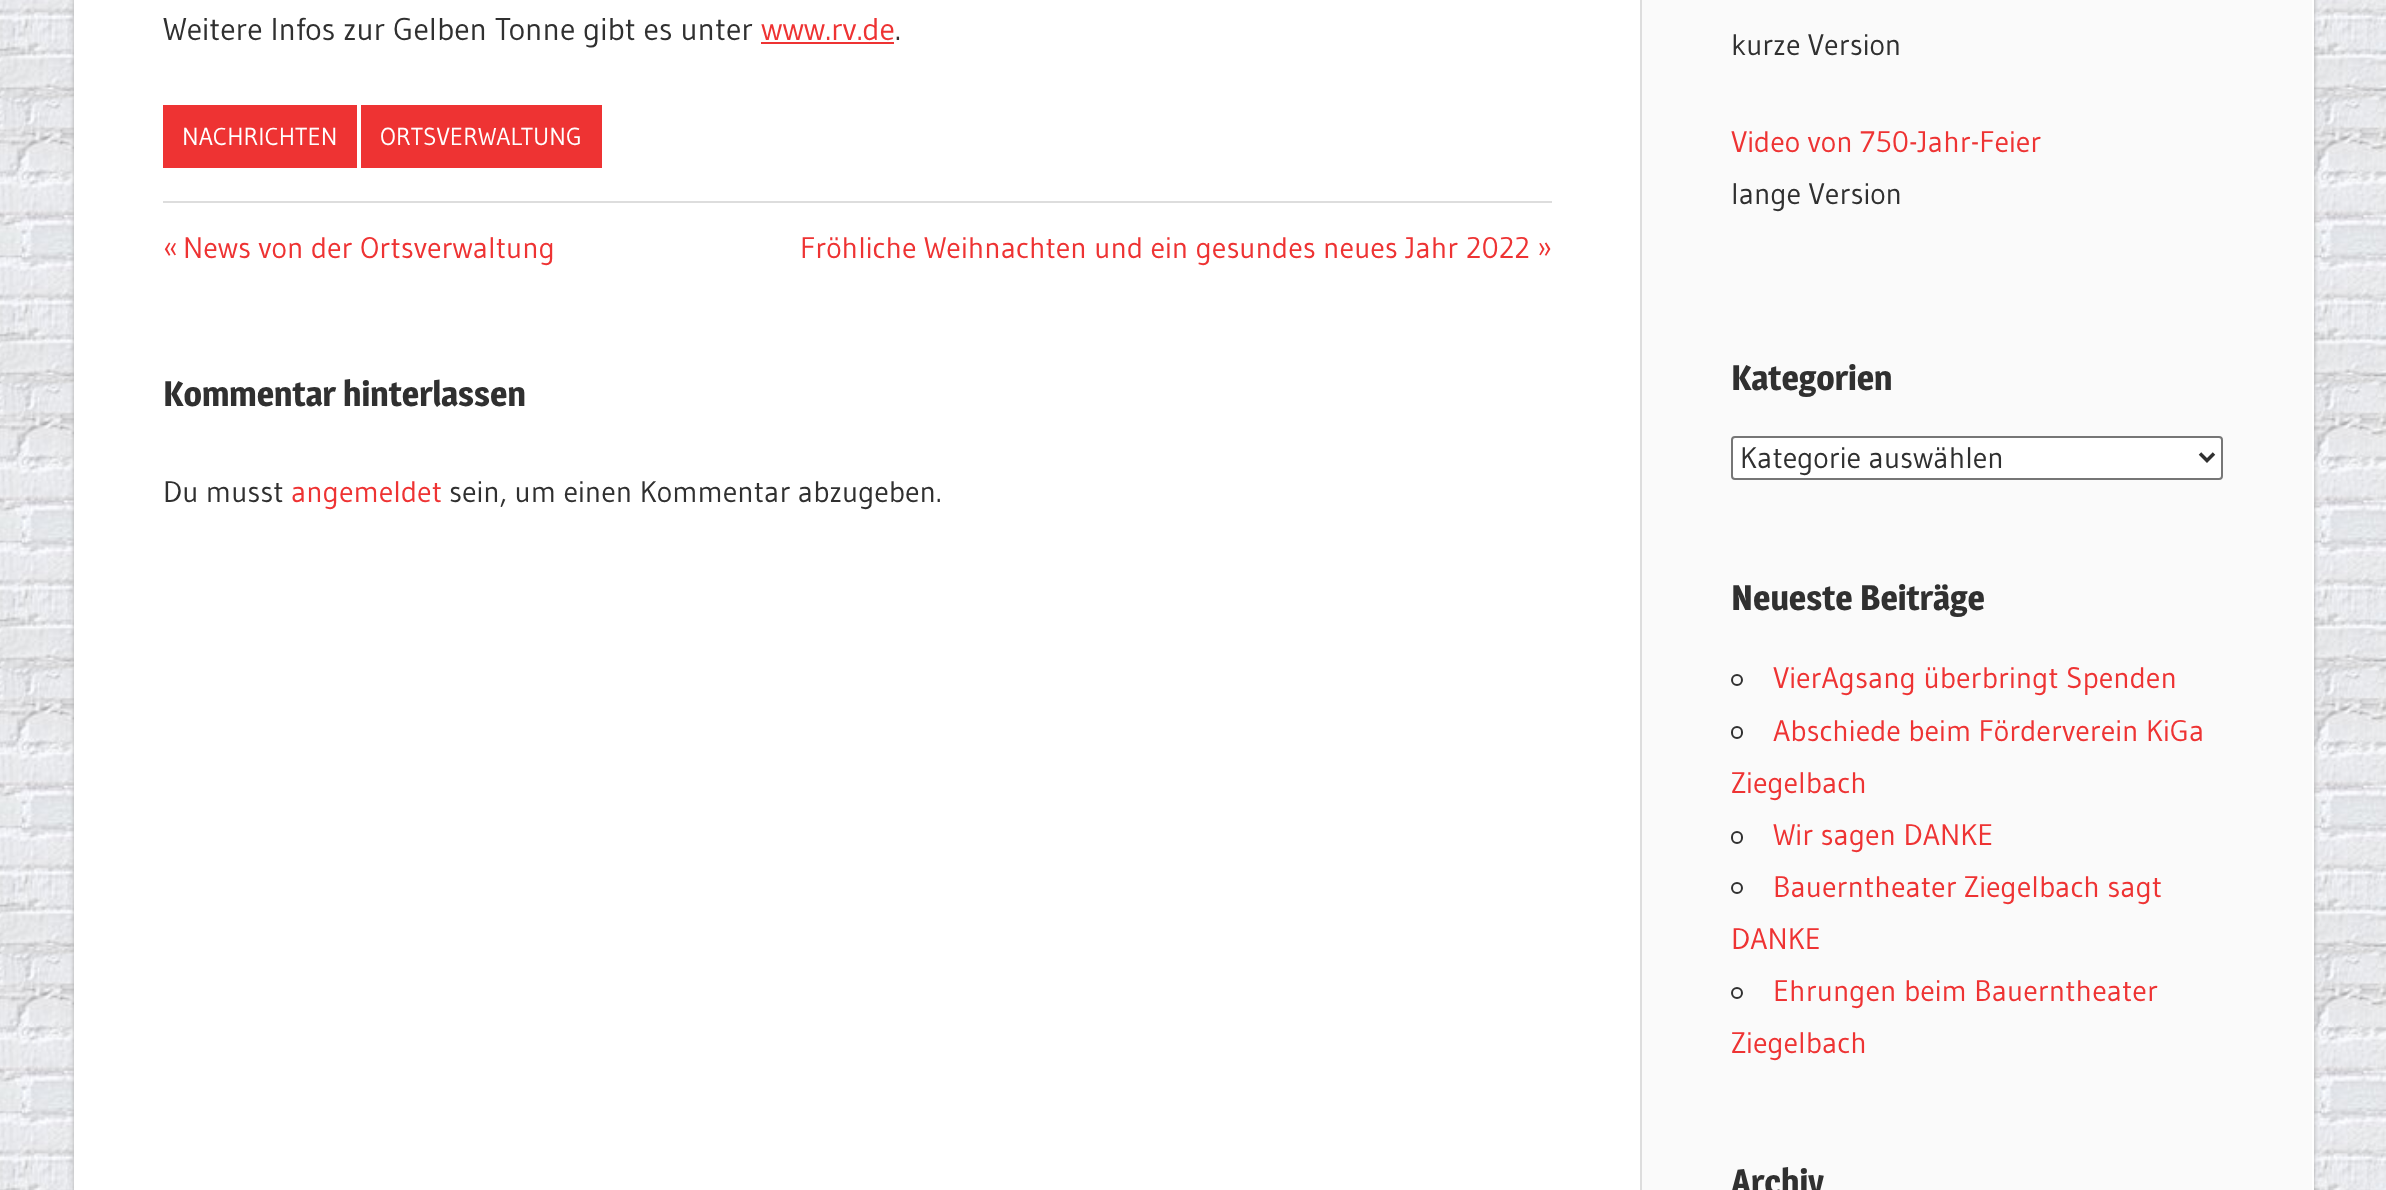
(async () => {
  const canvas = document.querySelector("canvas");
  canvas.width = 2386;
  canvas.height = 1190;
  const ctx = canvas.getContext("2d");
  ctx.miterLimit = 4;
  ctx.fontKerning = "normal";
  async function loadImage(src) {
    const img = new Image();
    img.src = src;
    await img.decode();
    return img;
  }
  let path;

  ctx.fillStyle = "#ffffff";
  ctx.fillRect(0, 0, 2386, 1190);
  ctx.drawImage(await loadImage("img/1.png"), 0, 0, 2386, 1190);
  ctx.fillStyle = "#aaaaaa";
  ctx.filter = "blur(2px)";
  ctx.beginPath();
  ctx.rect(74, -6, 2240, 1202);
  ctx.fill();
  ctx.filter = "none";
  for (const [x, y, w, h, color] of [
    [74, 0, 2240, 1190, "#ffffff"],
    [761, 42, 133, 2, "#ee3333"],
    [163, 105, 194, 63, "#ee3333"],
    [361, 105, 241, 63, "#ee3333"],
    [163, 201, 1389, 2, "#dddddd"],
    [1642, 0, 670, 1190, "#fafafa"],
    [1640, 0, 2, 1190, "#dddddd"],
  ]) {
    ctx.fillStyle = color;
    ctx.fillRect(x, y, w, h);
  }
  ctx.fillStyle = "#ffffff";
  ctx.beginPath();
  ctx.roundRect(1732, 437, 490, 42, 3);
  ctx.fill();
  ctx.strokeStyle = "#767676";
  ctx.lineWidth = 2;
  ctx.stroke();
  path = new Path2D("M2200 453.5L2207 460.5L2214 453.5");
  ctx.strokeStyle = "#303030";
  ctx.lineWidth = 3.5;
  ctx.stroke(path);
  ctx.beginPath();
  ctx.arc(1737, 680, 5, 0, Math.PI * 2);
  ctx.lineWidth = 2;
  ctx.stroke();
  ctx.beginPath();
  ctx.roundRect(1732, 727, 10, 11, 5);
  ctx.stroke();
  ctx.beginPath();
  ctx.roundRect(1732, 832, 10, 11, 5);
  ctx.stroke();
  ctx.beginPath();
  ctx.arc(1737, 888, 5, 0, Math.PI * 2);
  ctx.stroke();
  ctx.beginPath();
  ctx.arc(1737, 993, 5, 0, Math.PI * 2);
  ctx.stroke();
  ctx.font = "31.5px Gudea";
  ctx.fillStyle = "#303030";
  ctx.fillText("Weitere Infos zur Gelben Tonne gibt es unter", 163, 40);
  ctx.fillStyle = "#ee3333";
  ctx.fillText("www.rv.de", 761, 40);
  ctx.fillStyle = "#303030";
  ctx.fillText(".", 895, 40);
  ctx.font = "24.5px Gudea";
  ctx.fillStyle = "#ffffff";
  ctx.fillText("NACHRICHTEN", 182, 145);
  ctx.fillText("ORTSVERWALTUNG", 380, 145);
  ctx.font = "29.75px Gudea";
  ctx.fillStyle = "#ee3333";
  for (const [text, x, y] of [
    ["«", 163, 258],
    ["News von der Ortsverwaltung", 183, 258],
    ["Fröhliche Weihnachten und ein gesundes neues Jahr 2022", 800, 258],
    ["»", 1537, 258],
  ]) {
    ctx.fillText(text, x, y);
  }
  ctx.font = "bold 35px Magra";
  ctx.fillStyle = "#303030";
  ctx.fillText("Kommentar hinterlassen", 163, 406);
  ctx.font = "29.75px Gudea";
  ctx.fillText("Du musst", 163, 502);
  ctx.fillStyle = "#ee3333";
  ctx.fillText("angemeldet", 291, 502);
  ctx.fillStyle = "#303030";
  ctx.fillText("sein, um einen Kommentar abzugeben.", 449, 502);
  ctx.fillText("kurze Version", 1731, 55);
  ctx.fillStyle = "#ee3333";
  ctx.fillText("Video von 750-Jahr-Feier", 1731, 152);
  ctx.fillStyle = "#303030";
  ctx.fillText("lange Version", 1731, 204);
  ctx.font = "bold 35px Magra";
  ctx.fillText("Kategorien", 1731, 390);
  ctx.font = "29.75px Gudea";
  ctx.fillText("Kategorie auswählen", 1740, 468);
  ctx.font = "bold 35px Magra";
  ctx.fillText("Neueste Beiträge", 1731, 610);
  ctx.font = "29.75px Gudea";
  ctx.fillStyle = "#ee3333";
  for (const [text, x, y] of [
    ["VierAgsang überbringt Spenden", 1773, 688],
    ["Abschiede beim Förderverein KiGa", 1773, 741],
    ["Ziegelbach", 1731, 793],
    ["Wir sagen DANKE", 1773, 845],
    ["Bauerntheater Ziegelbach sagt", 1773, 897],
    ["DANKE", 1731, 949],
    ["Ehrungen beim Bauerntheater", 1773, 1001],
    ["Ziegelbach", 1731, 1053],
  ]) {
    ctx.fillText(text, x, y);
  }
  ctx.font = "bold 35px Magra";
  ctx.fillStyle = "#303030";
  ctx.fillText("Archiv", 1731, 1194);
})();
